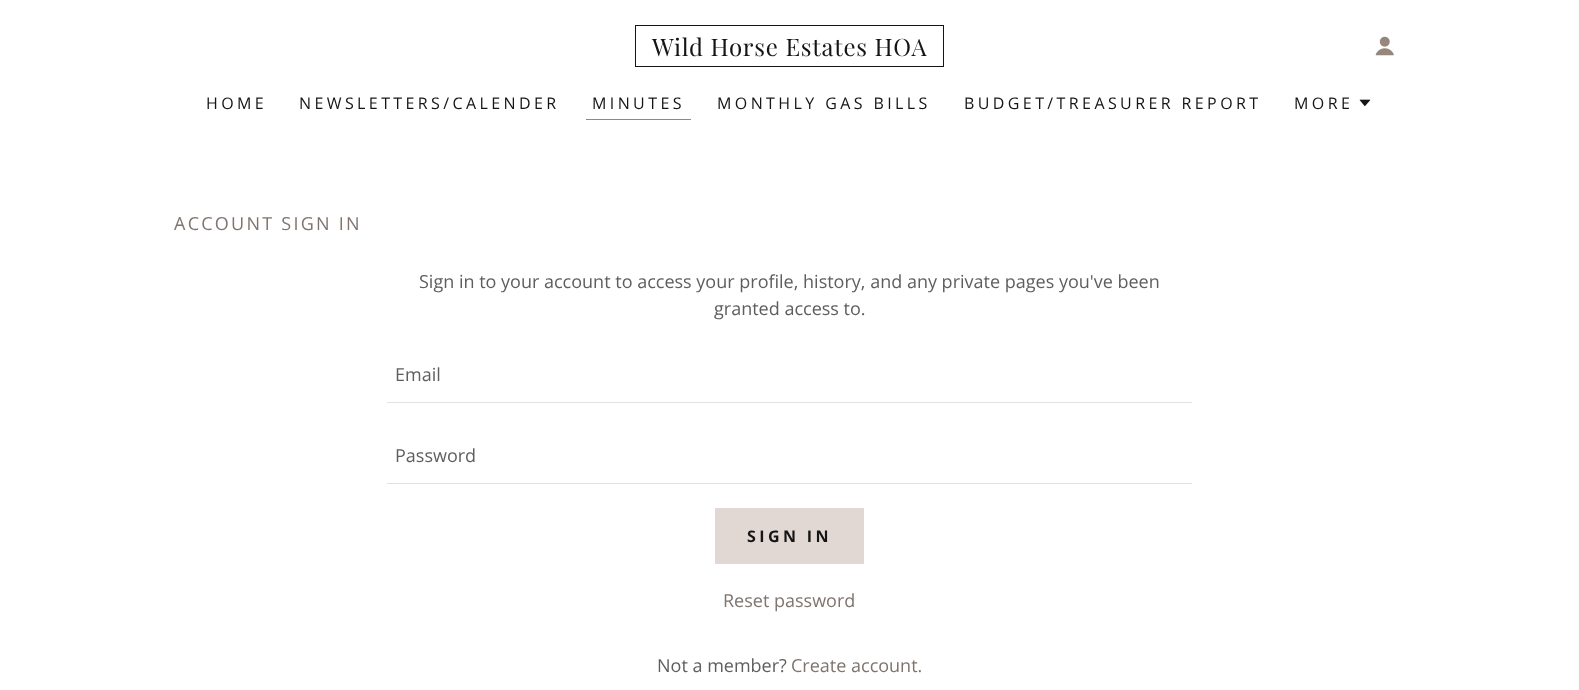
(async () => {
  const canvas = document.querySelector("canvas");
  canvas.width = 1579;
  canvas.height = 690;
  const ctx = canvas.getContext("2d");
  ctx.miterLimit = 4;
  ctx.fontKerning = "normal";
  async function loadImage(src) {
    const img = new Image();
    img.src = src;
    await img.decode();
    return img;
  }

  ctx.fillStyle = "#ffffff";
  ctx.fillRect(0, 0, 1579, 690);
  ctx.strokeStyle = "#151515";
  ctx.strokeRect(635.5, 25.5, 308, 41);
  ctx.drawImage(await loadImage("img/1.png"), 1375, 36, 19, 20);
  ctx.fillStyle = "#96867c";
  ctx.fillRect(586, 119, 105, 1);
  ctx.drawImage(await loadImage("img/2.png"), 1359, 99, 12, 8);
  for (const [x, y, w, h, color] of [
    [387, 402, 805, 1, "#e2e2e2"],
    [387, 483, 805, 1, "#e2e2e2"],
    [715, 508, 149, 56, "#e1d8d3"],
  ]) {
    ctx.fillStyle = color;
    ctx.fillRect(x, y, w, h);
  }
  ctx.letterSpacing = "0.75px";
  ctx.font = "24px Playfair Display";
  ctx.fillStyle = "#151515";
  ctx.fillText("Wild Horse Estates HOA", 652, 56);
  ctx.letterSpacing = "3.4px";
  ctx.font = "16px Open Sans";
  for (const [text, x, y] of [
    ["HOME", 206, 109],
    ["NEWSLETTERS/CALENDER", 299, 109],
    ["MINUTES", 592, 109],
    ["MONTHLY GAS BILLS", 717, 109],
    ["BUDGET/TREASURER REPORT", 964, 109],
    ["MORE", 1294, 109],
  ]) {
    ctx.fillText(text, x, y);
  }
  ctx.letterSpacing = "2.25px";
  ctx.font = "18px Open Sans";
  ctx.fillStyle = "#7f746e";
  ctx.fillText("ACCOUNT SIGN IN", 174, 230);
  ctx.letterSpacing = "0px";
  ctx.fillStyle = "#5e5e5e";
  for (const [text, x, y] of [
    ["Sign in to your account to access your profile, history, and any private pages you've been", 419, 288],
    ["granted access to.", 714, 315],
    ["Email", 395, 381],
    ["Password", 395, 462],
  ]) {
    ctx.fillText(text, x, y);
  }
  ctx.letterSpacing = "3.4px";
  ctx.font = "bold 16px Open Sans";
  ctx.fillStyle = "#151515";
  ctx.fillText("SIGN IN", 747, 542);
  ctx.letterSpacing = "0px";
  ctx.font = "18px Open Sans";
  ctx.fillStyle = "#7f746e";
  ctx.fillText("Reset password", 723, 607);
  ctx.fillStyle = "#5e5e5e";
  ctx.fillText("Not a member?", 657, 672);
  ctx.fillStyle = "#7f746e";
  ctx.fillText("Create account.", 791, 672);
})();
